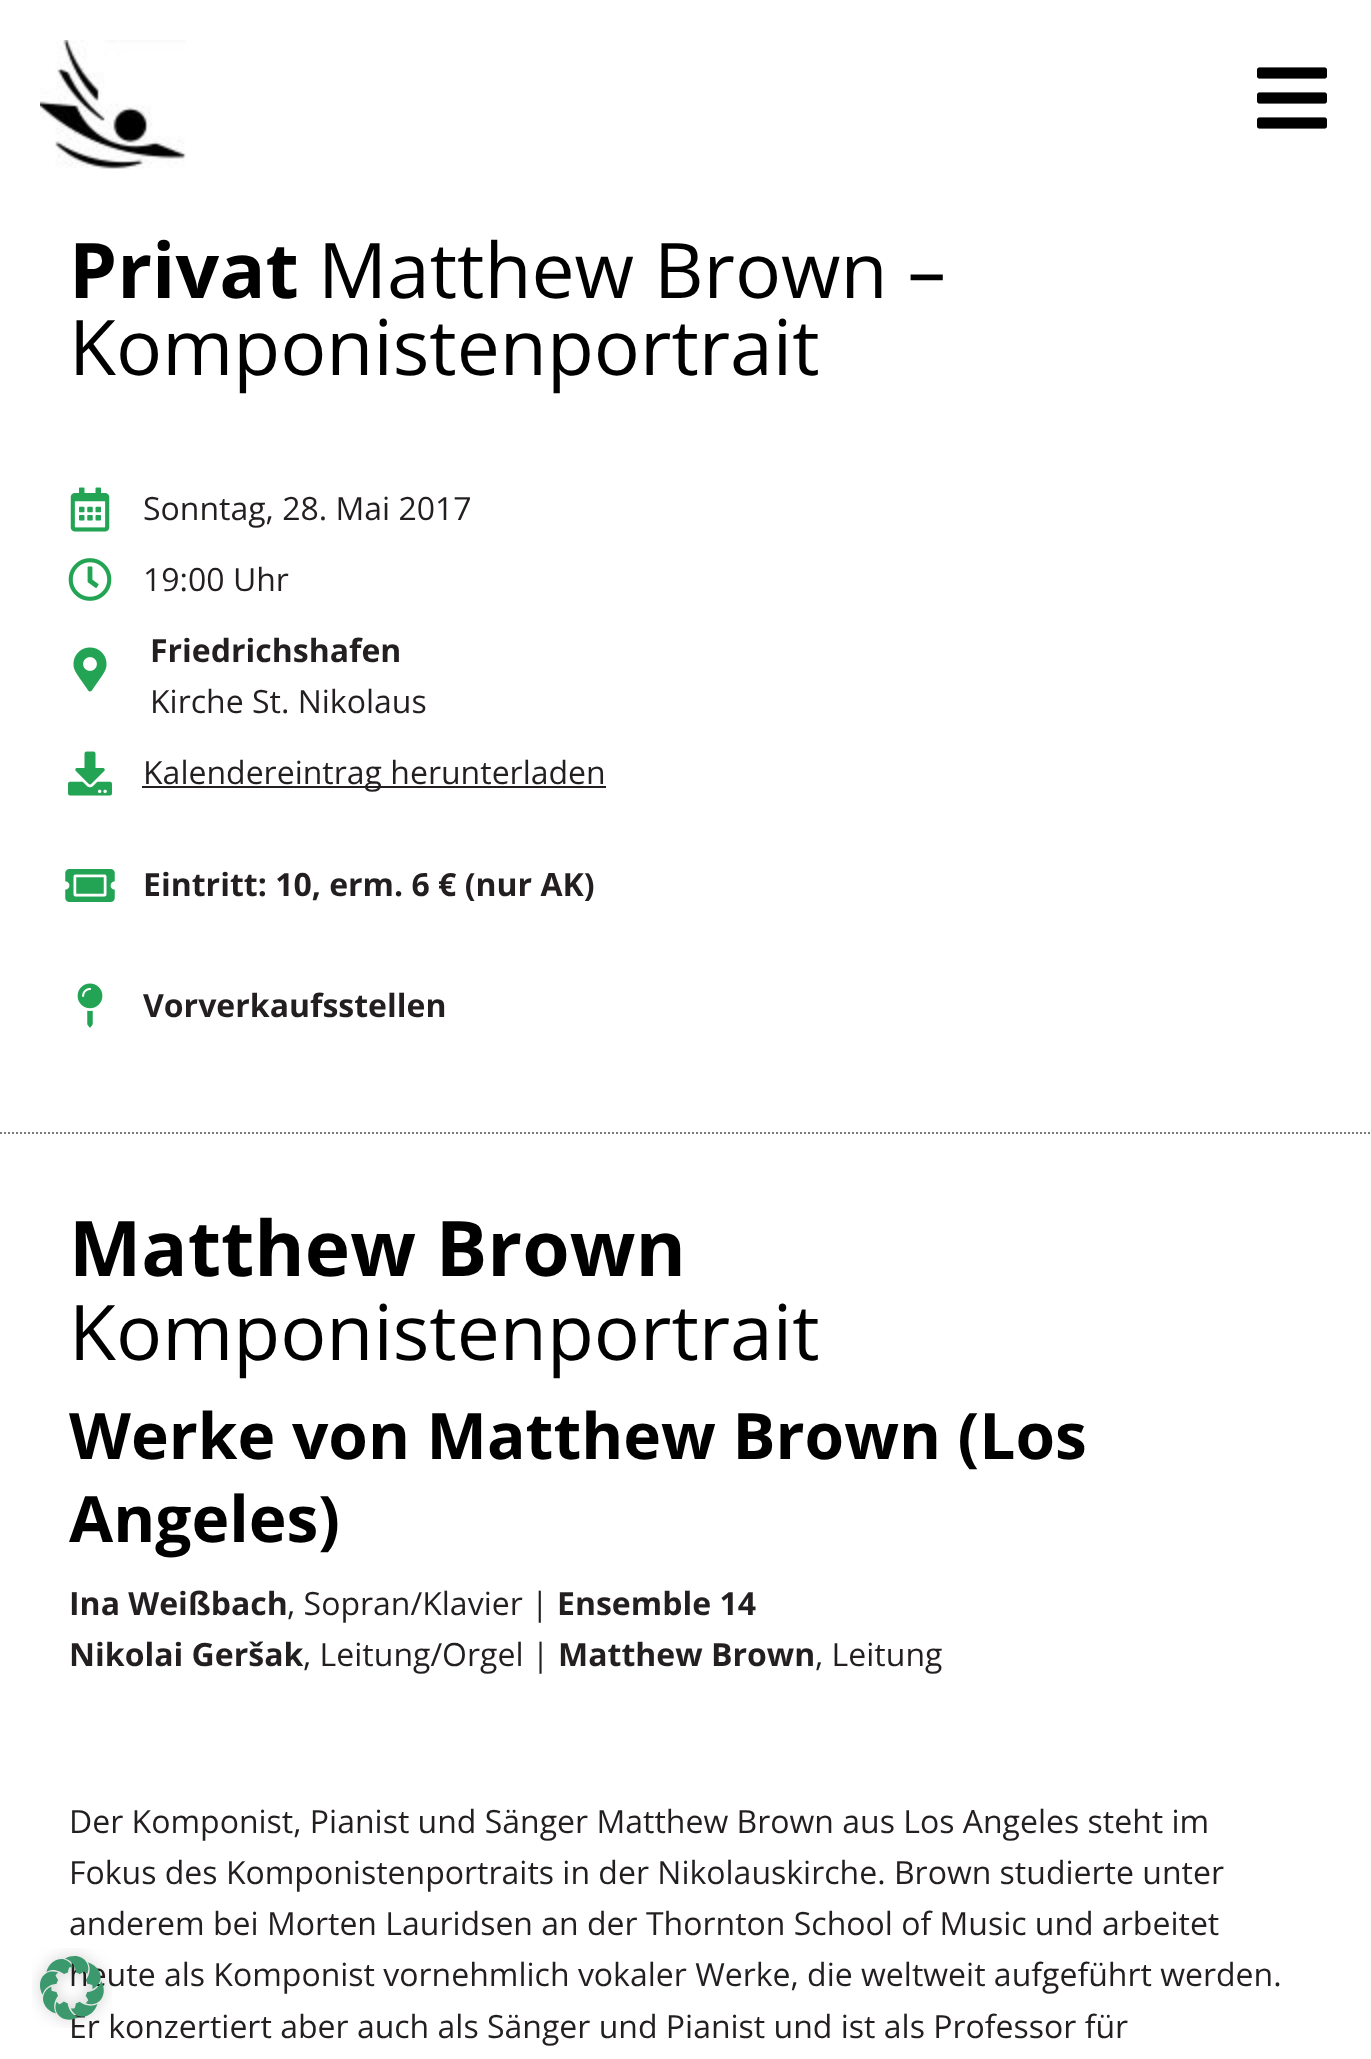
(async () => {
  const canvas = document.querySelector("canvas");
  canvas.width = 1371;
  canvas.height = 2059;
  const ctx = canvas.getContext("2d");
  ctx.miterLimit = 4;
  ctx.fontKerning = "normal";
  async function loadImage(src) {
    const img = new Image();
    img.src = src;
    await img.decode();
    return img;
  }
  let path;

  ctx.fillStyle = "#ffffff";
  ctx.fillRect(0, 0, 1371, 2059);
  ctx.drawImage(await loadImage("img/1.png"), 40, 40, 146, 129);
  ctx.drawImage(await loadImage("img/2.png"), 1257, 67, 70, 62);
  ctx.drawImage(await loadImage("img/3.png"), 70, 487, 40, 45);
  ctx.drawImage(await loadImage("img/4.png"), 68, 558, 44, 43);
  ctx.drawImage(await loadImage("img/5.png"), 73, 647, 34, 45);
  ctx.drawImage(await loadImage("img/6.png"), 68, 751, 44, 45);
  ctx.fillStyle = "#231f20";
  ctx.fillRect(142, 786, 464, 2);
  ctx.drawImage(await loadImage("img/7.png"), 65, 869, 50, 33);
  ctx.drawImage(await loadImage("img/8.png"), 77, 983, 26, 45);
  path = new Path2D("M0 1133H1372");
  ctx.strokeStyle = "#7a7a7a";
  ctx.lineWidth = 2;
  ctx.setLineDash([2, 2]);
  ctx.stroke(path);
  ctx.font = "bold 76.75px Open Sans";
  ctx.fillStyle = "#000000";
  ctx.fillText("Privat", 69, 298);
  ctx.font = "76.75px Open Sans";
  ctx.fillText("Matthew Brown –", 318, 298);
  ctx.fillText("Komponistenportrait", 69, 375);
  ctx.font = "32px Open Sans";
  ctx.fillStyle = "#231f20";
  ctx.fillText("Sonntag, 28. Mai 2017", 143, 520);
  ctx.fillText("19:00 Uhr", 143, 591);
  ctx.font = "bold 32px Open Sans";
  ctx.fillText("Friedrichshafen", 150, 662);
  ctx.font = "32px Open Sans";
  ctx.fillText("Kirche St. Nikolaus", 150, 713);
  ctx.fillText("Kalendereintrag herunterladen", 143, 784);
  ctx.font = "bold 32px Open Sans";
  ctx.fillText("Eintritt: 10, erm. 6 € (nur AK)", 143, 896);
  ctx.fillText("Vorverkaufsstellen", 143, 1017);
  ctx.font = "bold 76.75px Open Sans";
  ctx.fillStyle = "#000000";
  ctx.fillText("Matthew Brown", 69, 1276);
  ctx.font = "76.75px Open Sans";
  ctx.fillText("Komponistenportrait", 69, 1360);
  ctx.font = "bold 64px Open Sans";
  ctx.fillText("Werke von Matthew Brown (Los", 69, 1459);
  ctx.fillText("Angeles)", 69, 1542);
  ctx.font = "bold 32px Open Sans";
  ctx.fillStyle = "#231f20";
  ctx.fillText("Ina Weißbach", 69, 1615);
  ctx.font = "32px Open Sans";
  ctx.fillText(", Sopran/Klavier |", 287, 1615);
  ctx.font = "bold 32px Open Sans";
  ctx.fillText("Ensemble 14", 557, 1615);
  ctx.fillText("Nikolai Geršak", 69, 1666);
  ctx.font = "32px Open Sans";
  ctx.fillText(", Leitung/Orgel |", 303, 1666);
  ctx.font = "bold 32px Open Sans";
  ctx.fillText("Matthew Brown", 558, 1666);
  ctx.font = "32px Open Sans";
  for (const [text, x, y] of [
    [", Leitung", 815, 1666],
    ["Der Komponist, Pianist und Sänger Matthew Brown aus Los Angeles steht im", 69, 1833],
    ["Fokus des Komponistenportraits in der Nikolauskirche. Brown studierte unter", 69, 1884],
    ["anderem bei Morten Lauridsen an der Thornton School of Music und arbeitet", 69, 1935],
    ["heute als Komponist vornehmlich vokaler Werke, die weltweit aufgeführt werden.", 69, 1986],
    ["Er konzertiert aber auch als Sänger und Pianist und ist als Professor für", 69, 2038],
  ]) {
    ctx.fillText(text, x, y);
  }
  ctx.drawImage(await loadImage("img/9.png"), 32, 1948, 80, 80);
})();
